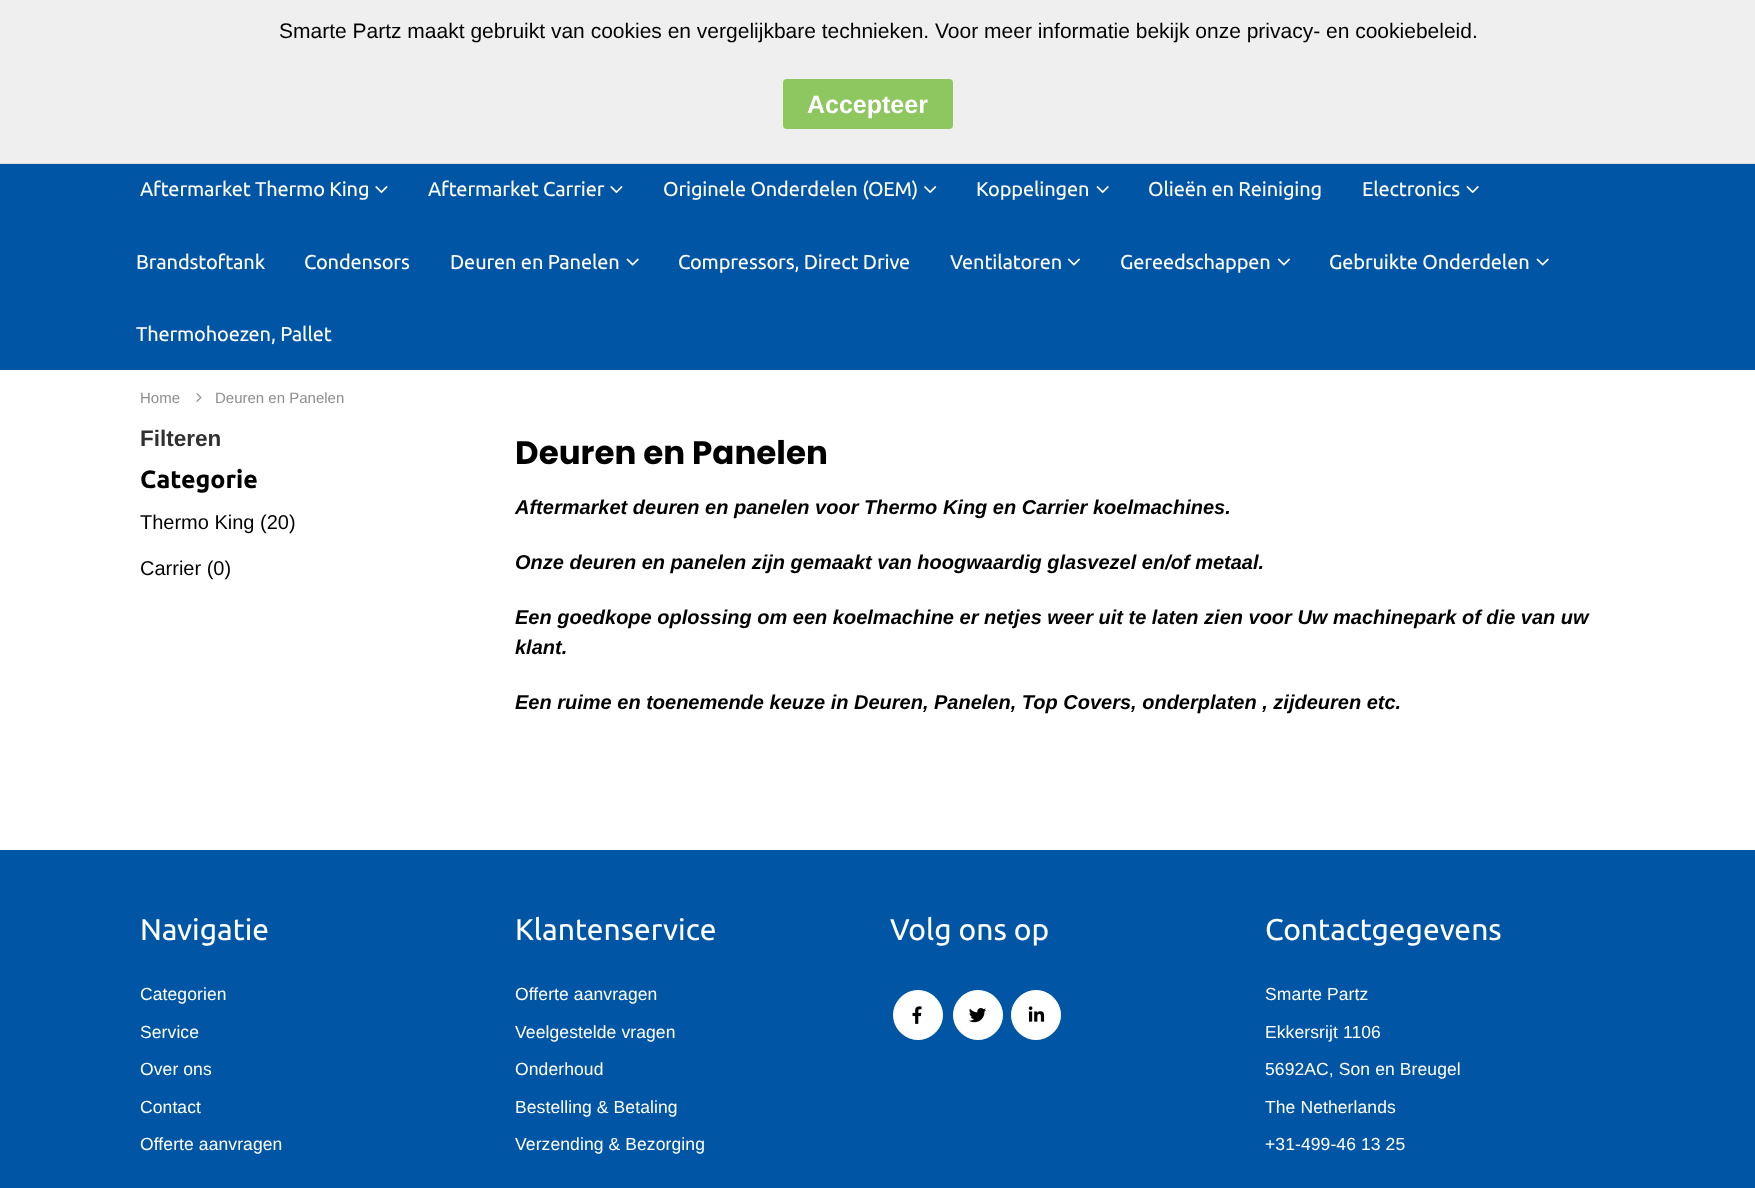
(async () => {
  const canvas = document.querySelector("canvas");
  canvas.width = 1755;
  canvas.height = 1188;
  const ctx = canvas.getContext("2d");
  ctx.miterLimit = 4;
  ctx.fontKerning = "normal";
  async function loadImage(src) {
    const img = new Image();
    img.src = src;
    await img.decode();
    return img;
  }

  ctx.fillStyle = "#ffffff";
  ctx.fillRect(0, 0, 1755, 1188);
  ctx.fillStyle = "#efefef";
  ctx.fillRect(0, 0, 1755, 163);
  ctx.fillStyle = "#dddddd";
  ctx.fillRect(0, 163, 1755, 1);
  ctx.fillStyle = "#8ec760";
  ctx.beginPath();
  ctx.roundRect(783, 79, 170, 50, 4);
  ctx.fill();
  ctx.fillStyle = "#0055a4";
  ctx.fillRect(0, 164, 1755, 206);
  ctx.drawImage(await loadImage("img/1.png"), 375, 186, 13, 8);
  ctx.drawImage(await loadImage("img/1.png"), 610, 186, 13, 8);
  ctx.drawImage(await loadImage("img/2.png"), 924, 186, 13, 8);
  ctx.drawImage(await loadImage("img/3.png"), 1096, 186, 13, 8);
  ctx.drawImage(await loadImage("img/3.png"), 1466, 186, 13, 8);
  ctx.drawImage(await loadImage("img/4.png"), 626, 258, 13, 8);
  ctx.drawImage(await loadImage("img/5.png"), 1067, 258, 13, 8);
  ctx.drawImage(await loadImage("img/5.png"), 1277, 258, 13, 8);
  ctx.drawImage(await loadImage("img/4.png"), 1536, 258, 13, 8);
  ctx.drawImage(await loadImage("img/6.png"), 196, 393, 6, 9);
  ctx.fillRect(0, 850, 1755, 338);
  ctx.fillStyle = "#ffffff";
  ctx.beginPath();
  ctx.arc(918, 1015, 24.5, 0, Math.PI * 2);
  ctx.fill();
  ctx.strokeStyle = "#ffffff";
  ctx.stroke();
  ctx.drawImage(await loadImage("img/7.png"), 912, 1006, 10, 18);
  ctx.beginPath();
  ctx.arc(978, 1015, 24.5, 0, Math.PI * 2);
  ctx.fill();
  ctx.stroke();
  ctx.drawImage(await loadImage("img/8.png"), 969, 1008, 18, 15);
  ctx.beginPath();
  ctx.arc(1036, 1015, 24.5, 0, Math.PI * 2);
  ctx.fill();
  ctx.stroke();
  ctx.drawImage(await loadImage("img/9.png"), 1028, 1006, 17, 16);
  ctx.font = "21px Liberation Sans";
  ctx.fillStyle = "#000000";
  ctx.fillText("Smarte Partz maakt gebruikt van cookies en vergelijkbare technieken. Voor meer informatie bekijk onze privacy- en cookiebeleid.", 279, 38);
  ctx.font = "bold 25px Liberation Sans";
  ctx.fillStyle = "#ffffff";
  ctx.fillText("Accepteer", 807, 113);
  ctx.letterSpacing = "-0.15px";
  ctx.font = "20px Ubuntu";
  for (const [text, x, y] of [
    ["Aftermarket Thermo King", 140, 196],
    ["Aftermarket Carrier", 428, 196],
    ["Originele Onderdelen (OEM)", 663, 196],
    ["Koppelingen", 976, 196],
    ["Olieën en Reiniging", 1148, 196],
    ["Electronics", 1362, 196],
    ["Brandstoftank", 136, 269],
    ["Condensors", 304, 269],
    ["Deuren en Panelen", 450, 269],
    ["Compressors, Direct Drive", 678, 269],
    ["Ventilatoren", 950, 269],
    ["Gereedschappen", 1120, 269],
    ["Gebruikte Onderdelen", 1329, 269],
    ["Thermohoezen, Pallet", 136, 341],
  ]) {
    ctx.fillText(text, x, y);
  }
  ctx.letterSpacing = "0px";
  ctx.font = "15px Liberation Sans";
  ctx.fillStyle = "#8e8e8e";
  ctx.fillText("Home", 140, 403);
  ctx.fillText("Deuren en Panelen", 215, 403);
  ctx.font = "bold 22.5px Liberation Sans";
  ctx.fillStyle = "#313131";
  ctx.fillText("Filteren", 140, 446);
  ctx.font = "bold 25px Ubuntu";
  ctx.fillStyle = "#000000";
  ctx.fillText("Categorie", 140, 488);
  ctx.font = "20px Liberation Sans";
  ctx.fillText("Thermo King (20)", 140, 529);
  ctx.fillText("Carrier (0)", 140, 575);
  ctx.font = "bold 32.5px Poppins";
  ctx.fillText("Deuren en Panelen", 515, 464);
  ctx.font = "italic bold 20px Liberation Sans";
  for (const [text, x, y] of [
    ["Aftermarket deuren en panelen voor Thermo King en Carrier koelmachines.", 515, 514],
    ["Onze deuren en panelen zijn gemaakt van hoogwaardig glasvezel en/of metaal.", 515, 569],
    ["Een goedkope oplossing om een koelmachine er netjes weer uit te laten zien voor Uw machinepark of die van uw", 515, 624],
    ["klant.", 515, 654],
    ["Een ruime en toenemende keuze in Deuren, Panelen, Top Covers, onderplaten , zijdeuren etc.", 515, 709],
  ]) {
    ctx.fillText(text, x, y);
  }
  ctx.font = "30px Ubuntu";
  ctx.fillStyle = "#ffffff";
  ctx.fillText("Navigatie", 140, 940);
  ctx.letterSpacing = "0.1px";
  ctx.font = "17.5px Liberation Sans";
  for (const [text, x, y] of [
    ["Categorien", 140, 1000],
    ["Service", 140, 1038],
    ["Over ons", 140, 1075],
    ["Contact", 140, 1113],
    ["Offerte aanvragen", 140, 1150],
  ]) {
    ctx.fillText(text, x, y);
  }
  ctx.letterSpacing = "0px";
  ctx.font = "30px Ubuntu";
  ctx.fillText("Klantenservice", 515, 940);
  ctx.letterSpacing = "0.1px";
  ctx.font = "17.5px Liberation Sans";
  for (const [text, x, y] of [
    ["Offerte aanvragen", 515, 1000],
    ["Veelgestelde vragen", 515, 1038],
    ["Onderhoud", 515, 1075],
    ["Bestelling & Betaling", 515, 1113],
    ["Verzending & Bezorging", 515, 1150],
  ]) {
    ctx.fillText(text, x, y);
  }
  ctx.letterSpacing = "0px";
  ctx.font = "30px Ubuntu";
  ctx.fillText("Volg ons op", 890, 940);
  ctx.fillText("Contactgegevens", 1265, 940);
  ctx.letterSpacing = "0.1px";
  ctx.font = "17.5px Liberation Sans";
  for (const [text, x, y] of [
    ["Smarte Partz", 1265, 1000],
    ["Ekkersrijt 1106", 1265, 1038],
    ["5692AC, Son en Breugel", 1265, 1075],
    ["The Netherlands", 1265, 1113],
    ["+31-499-46 13 25", 1265, 1150],
  ]) {
    ctx.fillText(text, x, y);
  }
})();
